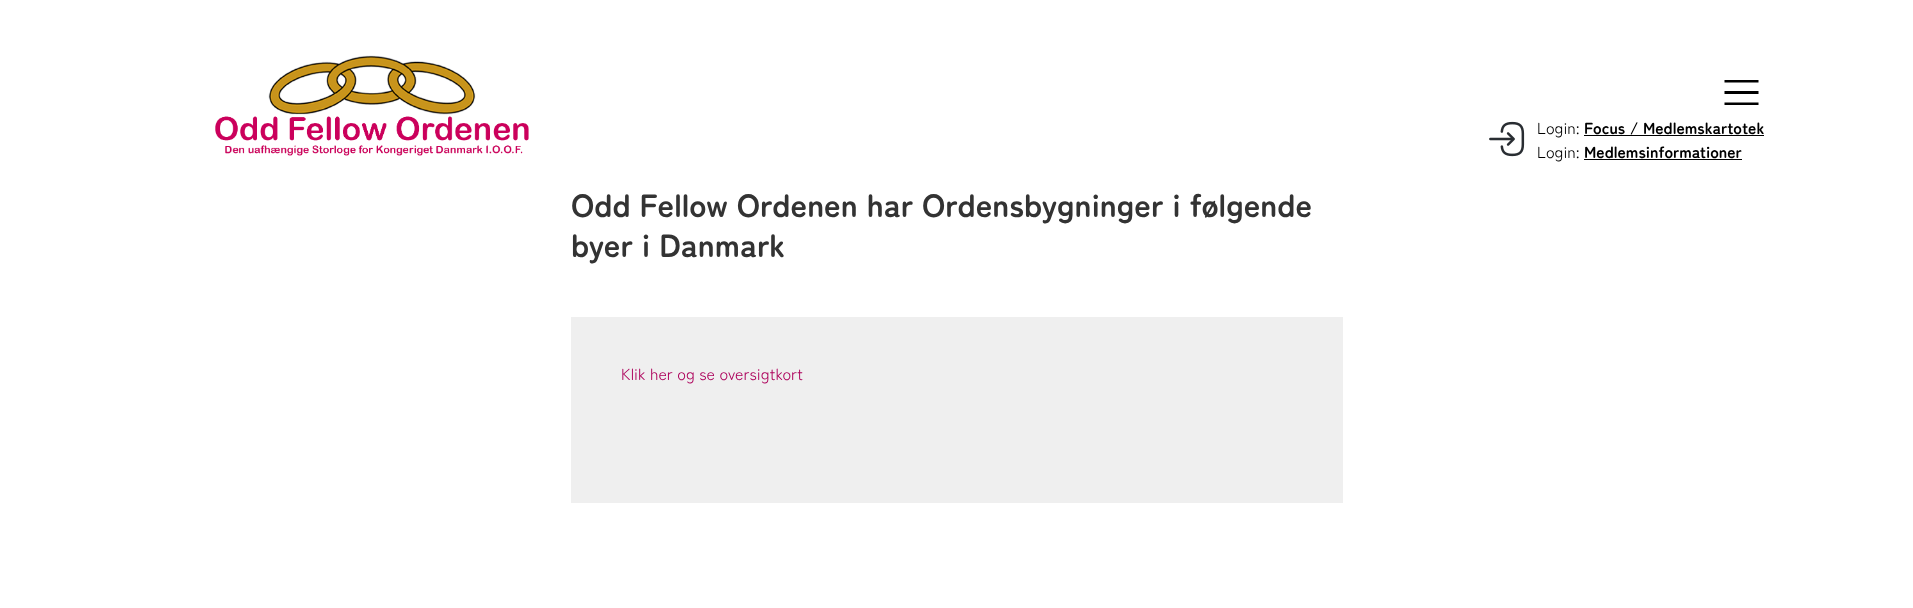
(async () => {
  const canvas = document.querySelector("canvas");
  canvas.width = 1913;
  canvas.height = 608;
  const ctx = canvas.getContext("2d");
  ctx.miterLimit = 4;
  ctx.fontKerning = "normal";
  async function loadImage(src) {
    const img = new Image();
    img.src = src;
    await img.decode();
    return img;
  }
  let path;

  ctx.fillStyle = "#ffffff";
  ctx.fillRect(0, 0, 1913, 608);
  ctx.drawImage(await loadImage("img/1.png"), 215, 55, 314, 101);
  ctx.fillStyle = "#000000";
  path = new Path2D("M1724.5 80V82.5H1758.5V80ZM1724.5 91V94H1758.5V91ZM1724.5 102.5V105H1758.5V102.5Z");
  ctx.fill(path);
  ctx.drawImage(await loadImage("img/2.png"), 1489, 121, 36, 36);
  for (const [x, y, w, h, color] of [
    [1584, 135, 180, 1, "#000000"],
    [1584, 159, 158, 1, "#000000"],
    [571, 317, 772, 186, "#efefef"],
  ]) {
    ctx.fillStyle = color;
    ctx.fillRect(x, y, w, h);
  }
  ctx.font = "16px Zen Maru Gothic";
  ctx.fillStyle = "#000000";
  ctx.fillText("Login:", 1537, 134);
  ctx.font = "bold 16px Zen Maru Gothic";
  ctx.fillText("Focus / Medlemskartotek", 1584, 134);
  ctx.font = "16px Zen Maru Gothic";
  ctx.fillText("Login:", 1537, 158);
  ctx.font = "bold 16px Zen Maru Gothic";
  ctx.fillText("Medlemsinformationer", 1584, 158);
  ctx.font = "bold 32px Zen Maru Gothic";
  ctx.fillStyle = "#333333";
  ctx.fillText("Odd Fellow Ordenen har Ordensbygninger i følgende", 571, 217);
  ctx.fillText("byer i Danmark", 571, 257);
  ctx.font = "16px Zen Maru Gothic";
  ctx.fillStyle = "#ad005b";
  ctx.fillText("Klik her og se oversigtkort", 621, 380);
})();
